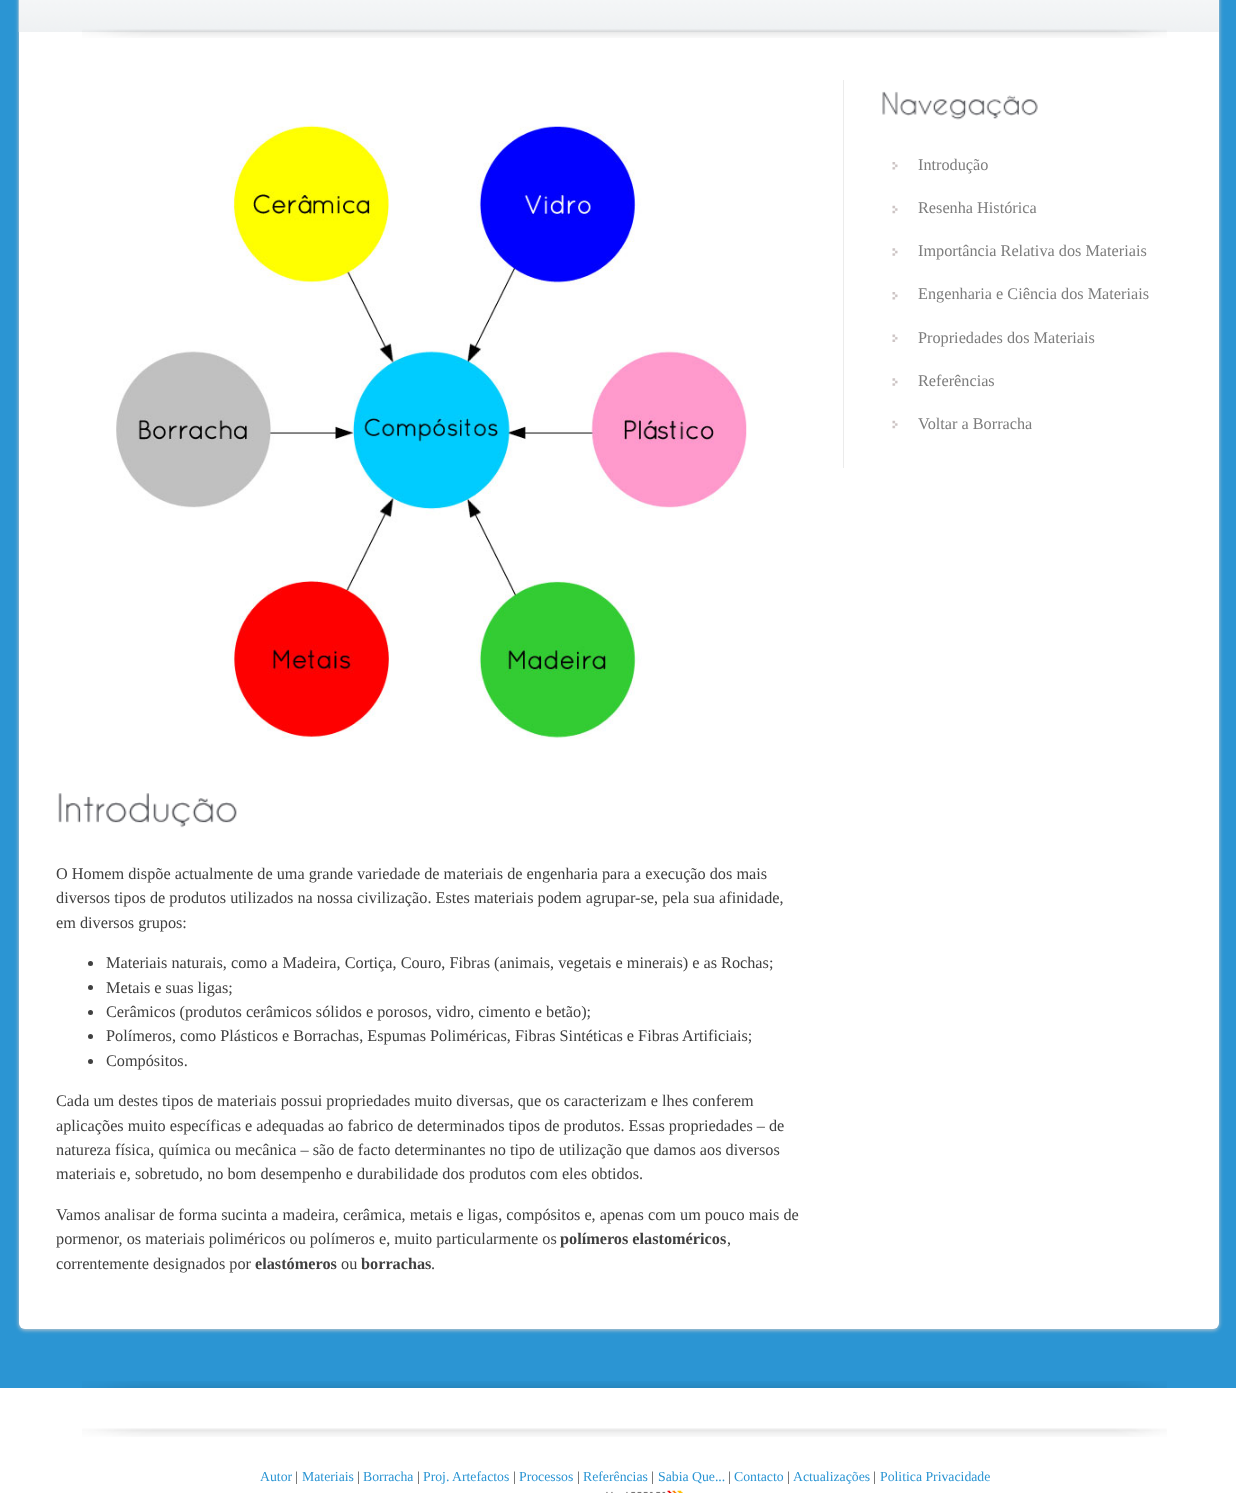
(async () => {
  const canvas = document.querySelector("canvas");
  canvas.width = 1236;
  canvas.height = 1493;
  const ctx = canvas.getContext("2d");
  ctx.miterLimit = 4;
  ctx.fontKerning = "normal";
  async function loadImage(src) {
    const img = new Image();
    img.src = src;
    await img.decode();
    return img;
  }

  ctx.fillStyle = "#2b95d3";
  ctx.fillRect(0, 0, 1236, 1493);
  ctx.fillStyle = "#cccccc";
  ctx.filter = "blur(2px)";
  ctx.beginPath();
  ctx.roundRect(19, -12, 1200, 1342, 6);
  ctx.fill();
  ctx.filter = "none";
  ctx.fillStyle = "#ffffff";
  ctx.beginPath();
  ctx.roundRect(19, -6, 1200, 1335, 6);
  ctx.fill();
  ctx.drawImage(await loadImage("img/1.png"), 18, 0, 1201, 32);
  ctx.drawImage(await loadImage("img/2.png"), 82, 29, 1085, 9);
  ctx.fillStyle = "#ebebeb";
  ctx.fillRect(843, 80, 1, 388);
  ctx.drawImage(await loadImage("img/3.png"), 882, 91, 156, 29);
  ctx.drawImage(await loadImage("img/4.png"), 892, 162, 6, 8);
  ctx.drawImage(await loadImage("img/5.png"), 892, 205, 6, 9);
  ctx.drawImage(await loadImage("img/6.png"), 892, 248, 6, 8);
  ctx.drawImage(await loadImage("img/4.png"), 892, 292, 6, 8);
  ctx.drawImage(await loadImage("img/7.png"), 892, 334, 6, 8);
  ctx.drawImage(await loadImage("img/6.png"), 892, 378, 6, 8);
  ctx.drawImage(await loadImage("img/5.png"), 892, 420, 6, 9);
  ctx.drawImage(await loadImage("img/8.png"), 116, 119, 631, 620);
  ctx.drawImage(await loadImage("img/9.png"), 58, 793, 179, 35);
  ctx.fillStyle = "#404040";
  ctx.beginPath();
  ctx.arc(90.5, 963.5, 2.5, 0, Math.PI * 2);
  ctx.fill();
  ctx.beginPath();
  ctx.arc(90.5, 987.5, 2.5, 0, Math.PI * 2);
  ctx.fill();
  ctx.beginPath();
  ctx.arc(90.5, 1012.5, 2.5, 0, Math.PI * 2);
  ctx.fill();
  ctx.beginPath();
  ctx.arc(90.5, 1036.5, 2.5, 0, Math.PI * 2);
  ctx.fill();
  ctx.beginPath();
  ctx.arc(90.5, 1061.5, 2.5, 0, Math.PI * 2);
  ctx.fill();
  ctx.drawImage(await loadImage("img/10.png"), 82, 1381, 1085, 7);
  ctx.fillStyle = "#ffffff";
  ctx.fillRect(0, 1388, 1236, 105);
  ctx.drawImage(await loadImage("img/11.png"), 82, 1428, 1085, 9);
  ctx.drawImage(await loadImage("img/12.png"), 606, 1490, 77, 3);
  ctx.font = "16.25px Liberation Serif";
  ctx.fillStyle = "#7d7d7d";
  for (const [text, x, y] of [
    ["Introdução", 918, 170],
    ["Resenha Histórica", 918, 213],
    ["Importância Relativa dos Materiais", 918, 256],
    ["Engenharia e Ciência dos Materiais", 918, 299],
    ["Propriedades dos Materiais", 918, 343],
    ["Referências", 918, 386],
    ["Voltar a Borracha", 918, 429],
  ]) {
    ctx.fillText(text, x, y);
  }
  ctx.fillStyle = "#404040";
  for (const [text, x, y] of [
    ["O Homem dispõe actualmente de uma grande variedade de materiais de engenharia para a execução dos mais", 56, 879],
    ["diversos tipos de produtos utilizados na nossa civilização. Estes materiais podem agrupar-se, pela sua afinidade,", 56, 903],
    ["em diversos grupos:", 56, 928],
    ["Materiais naturais, como a Madeira, Cortiça, Couro, Fibras (animais, vegetais e minerais) e as Rochas;", 106, 968],
    ["Metais e suas ligas;", 106, 993],
    ["Cerâmicos (produtos cerâmicos sólidos e porosos, vidro, cimento e betão);", 106, 1017],
    ["Polímeros, como Plásticos e Borrachas, Espumas Poliméricas, Fibras Sintéticas e Fibras Artificiais;", 106, 1041],
    ["Compósitos.", 106, 1066],
    ["Cada um destes tipos de materiais possui propriedades muito diversas, que os caracterizam e lhes conferem", 56, 1106],
    ["aplicações muito específicas e adequadas ao fabrico de determinados tipos de produtos. Essas propriedades – de", 56, 1131],
    ["natureza física, química ou mecânica – são de facto determinantes no tipo de utilização que damos aos diversos", 56, 1155],
    ["materiais e, sobretudo, no bom desempenho e durabilidade dos produtos com eles obtidos.", 56, 1179],
    ["Vamos analisar de forma sucinta a madeira, cerâmica, metais e ligas, compósitos e, apenas com um pouco mais de", 56, 1220],
    ["pormenor, os materiais poliméricos ou polímeros e, muito particularmente os", 56, 1244],
  ]) {
    ctx.fillText(text, x, y);
  }
  ctx.font = "bold 16.25px Liberation Serif";
  ctx.fillText("polímeros elastoméricos", 560, 1244);
  ctx.font = "16.25px Liberation Serif";
  ctx.fillText(",", 727, 1244);
  ctx.fillText("correntemente designados por", 56, 1269);
  ctx.font = "bold 16.25px Liberation Serif";
  ctx.fillText("elastómeros", 255, 1269);
  ctx.font = "16.25px Liberation Serif";
  ctx.fillText("ou", 341, 1269);
  ctx.font = "bold 16.25px Liberation Serif";
  ctx.fillText("borrachas", 361, 1269);
  ctx.font = "16.25px Liberation Serif";
  ctx.fillText(".", 431, 1269);
  ctx.font = "13.75px Liberation Serif";
  ctx.fillStyle = "#2b95d3";
  ctx.fillText("Autor", 260, 1481);
  ctx.fillStyle = "#404040";
  ctx.fillText("|", 295, 1481);
  ctx.fillStyle = "#2b95d3";
  ctx.fillText("Materiais", 302, 1481);
  ctx.fillStyle = "#404040";
  ctx.fillText("|", 357, 1481);
  ctx.fillStyle = "#2b95d3";
  ctx.fillText("Borracha", 363, 1481);
  ctx.fillStyle = "#404040";
  ctx.fillText("|", 417, 1481);
  ctx.fillStyle = "#2b95d3";
  ctx.fillText("Proj. Artefactos", 423, 1481);
  ctx.fillStyle = "#404040";
  ctx.fillText("|", 513, 1481);
  ctx.fillStyle = "#2b95d3";
  ctx.fillText("Processos", 519, 1481);
  ctx.fillStyle = "#404040";
  ctx.fillText("|", 577, 1481);
  ctx.fillStyle = "#2b95d3";
  ctx.fillText("Referências", 583, 1481);
  ctx.fillStyle = "#404040";
  ctx.fillText("|", 651, 1481);
  ctx.fillStyle = "#2b95d3";
  ctx.fillText("Sabia Que...", 658, 1481);
  ctx.fillStyle = "#404040";
  ctx.fillText("|", 728, 1481);
  ctx.fillStyle = "#2b95d3";
  ctx.fillText("Contacto", 734, 1481);
  ctx.fillStyle = "#404040";
  ctx.fillText("|", 787, 1481);
  ctx.fillStyle = "#2b95d3";
  ctx.fillText("Actualizações", 793, 1481);
  ctx.fillStyle = "#404040";
  ctx.fillText("|", 873, 1481);
  ctx.fillStyle = "#2b95d3";
  ctx.fillText("Politica Privacidade", 880, 1481);
})();
